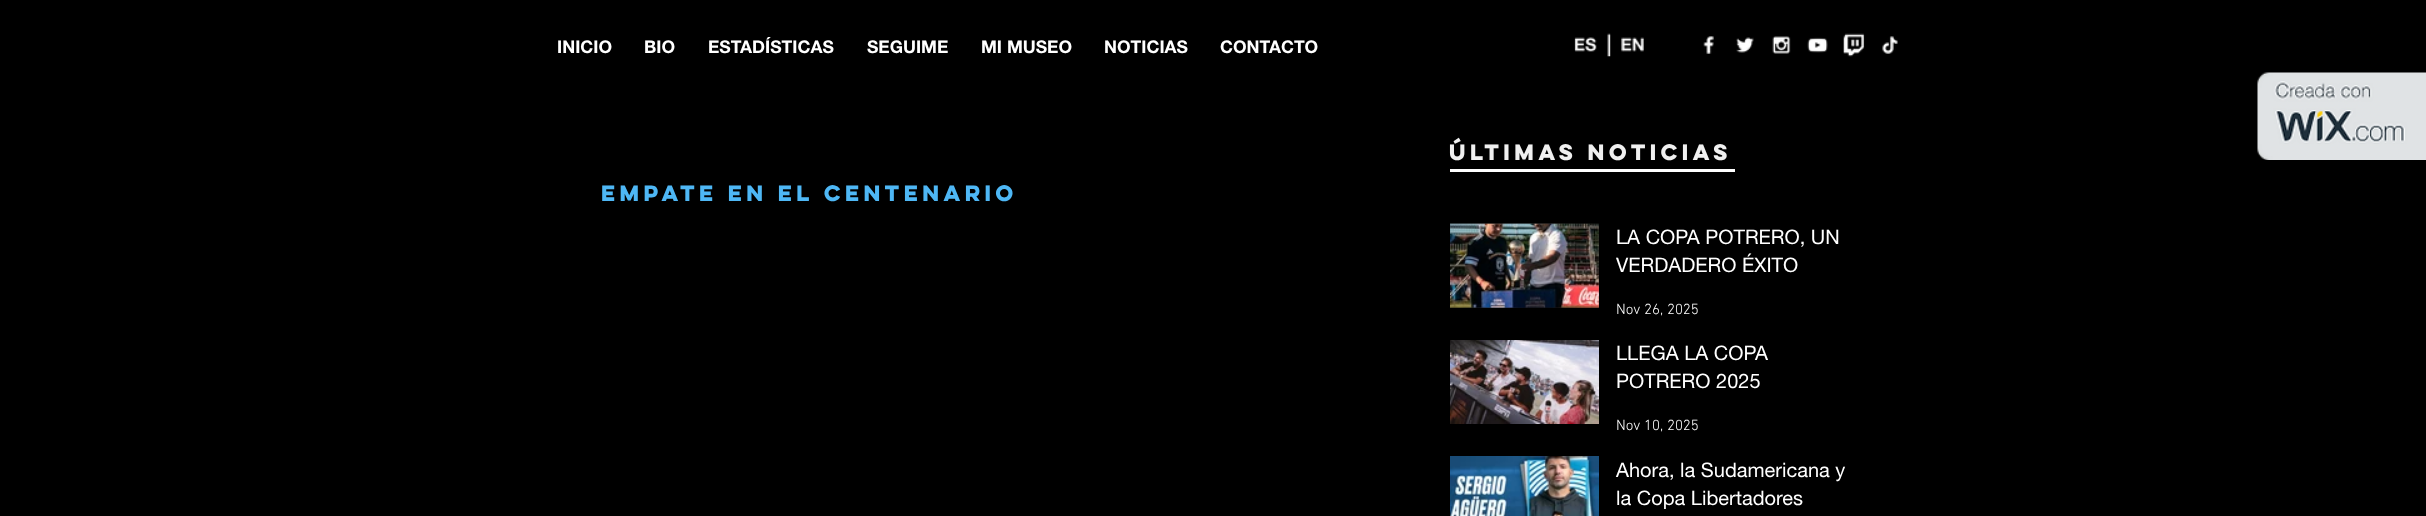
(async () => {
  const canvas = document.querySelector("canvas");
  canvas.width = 2426;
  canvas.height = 516;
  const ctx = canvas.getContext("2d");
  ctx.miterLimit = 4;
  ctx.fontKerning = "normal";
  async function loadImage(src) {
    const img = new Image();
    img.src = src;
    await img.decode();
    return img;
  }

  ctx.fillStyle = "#000000";
  ctx.fillRect(0, 0, 2426, 516);
  ctx.drawImage(await loadImage("img/1.png"), 1574, 37, 23, 15);
  ctx.drawImage(await loadImage("img/2.png"), 1607, 33, 4, 24);
  ctx.drawImage(await loadImage("img/3.png"), 1621, 37, 23, 15);
  ctx.drawImage(await loadImage("img/4.png"), 1703, 36, 11, 18);
  ctx.drawImage(await loadImage("img/5.png"), 1736, 37, 18, 16);
  ctx.drawImage(await loadImage("img/6.png"), 1772, 36, 19, 18);
  ctx.drawImage(await loadImage("img/7.png"), 1807, 37, 21, 16);
  ctx.drawImage(await loadImage("img/8.png"), 1843, 33, 22, 24);
  ctx.drawImage(await loadImage("img/9.png"), 1882, 36, 16, 18);
  ctx.drawImage(await loadImage("img/10.png"), 2257, 72, 169, 88);
  ctx.fillStyle = "#ffffff";
  ctx.fillRect(1450, 169, 285, 3);
  ctx.drawImage(await loadImage("img/11.png"), 1450, 223, 149, 85);
  ctx.drawImage(await loadImage("img/12.png"), 1450, 223, 149, 85);
  ctx.drawImage(await loadImage("img/13.png"), 1450, 340, 149, 84);
  ctx.drawImage(await loadImage("img/14.png"), 1450, 456, 149, 60);
  ctx.font = "bold 17.5px 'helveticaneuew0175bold'";
  for (const [text, x, y] of [
    ["INICIO", 557, 53],
    ["BIO", 644, 53],
    ["ESTADÍSTICAS", 708, 53],
    ["SEGUIME", 867, 53],
    ["MI MUSEO", 981, 53],
    ["NOTICIAS", 1104, 53],
    ["CONTACTO", 1220, 53],
  ]) {
    ctx.fillText(text, x, y);
  }
  ctx.font = "bold 20px 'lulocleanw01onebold'";
  ctx.fillStyle = "#4eb7f5";
  ctx.fillText("Empate en el Centenario", 601, 201);
  ctx.fillStyle = "#f0f0f0";
  ctx.fillText("ÚLTIMAs NOTICIAS", 1449, 160);
  ctx.font = "20px 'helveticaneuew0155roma'";
  ctx.fillStyle = "#ffffff";
  ctx.fillText("LA COPA POTRERO, UN", 1616, 244);
  ctx.fillText("VERDADERO ÉXITO", 1616, 272);
  ctx.font = "300 15px 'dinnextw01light'";
  ctx.fillText("Nov 26, 2025", 1616, 314);
  ctx.font = "20px 'helveticaneuew0155roma'";
  ctx.fillText("LLEGA LA COPA", 1616, 360);
  ctx.fillText("POTRERO 2025", 1616, 388);
  ctx.font = "300 15px 'dinnextw01light'";
  ctx.fillText("Nov 10, 2025", 1616, 430);
  ctx.font = "20px 'helveticaneuew0155roma'";
  ctx.fillText("Ahora, la Sudamericana y", 1616, 477);
  ctx.fillText("la Copa Libertadores", 1616, 505);
})();
